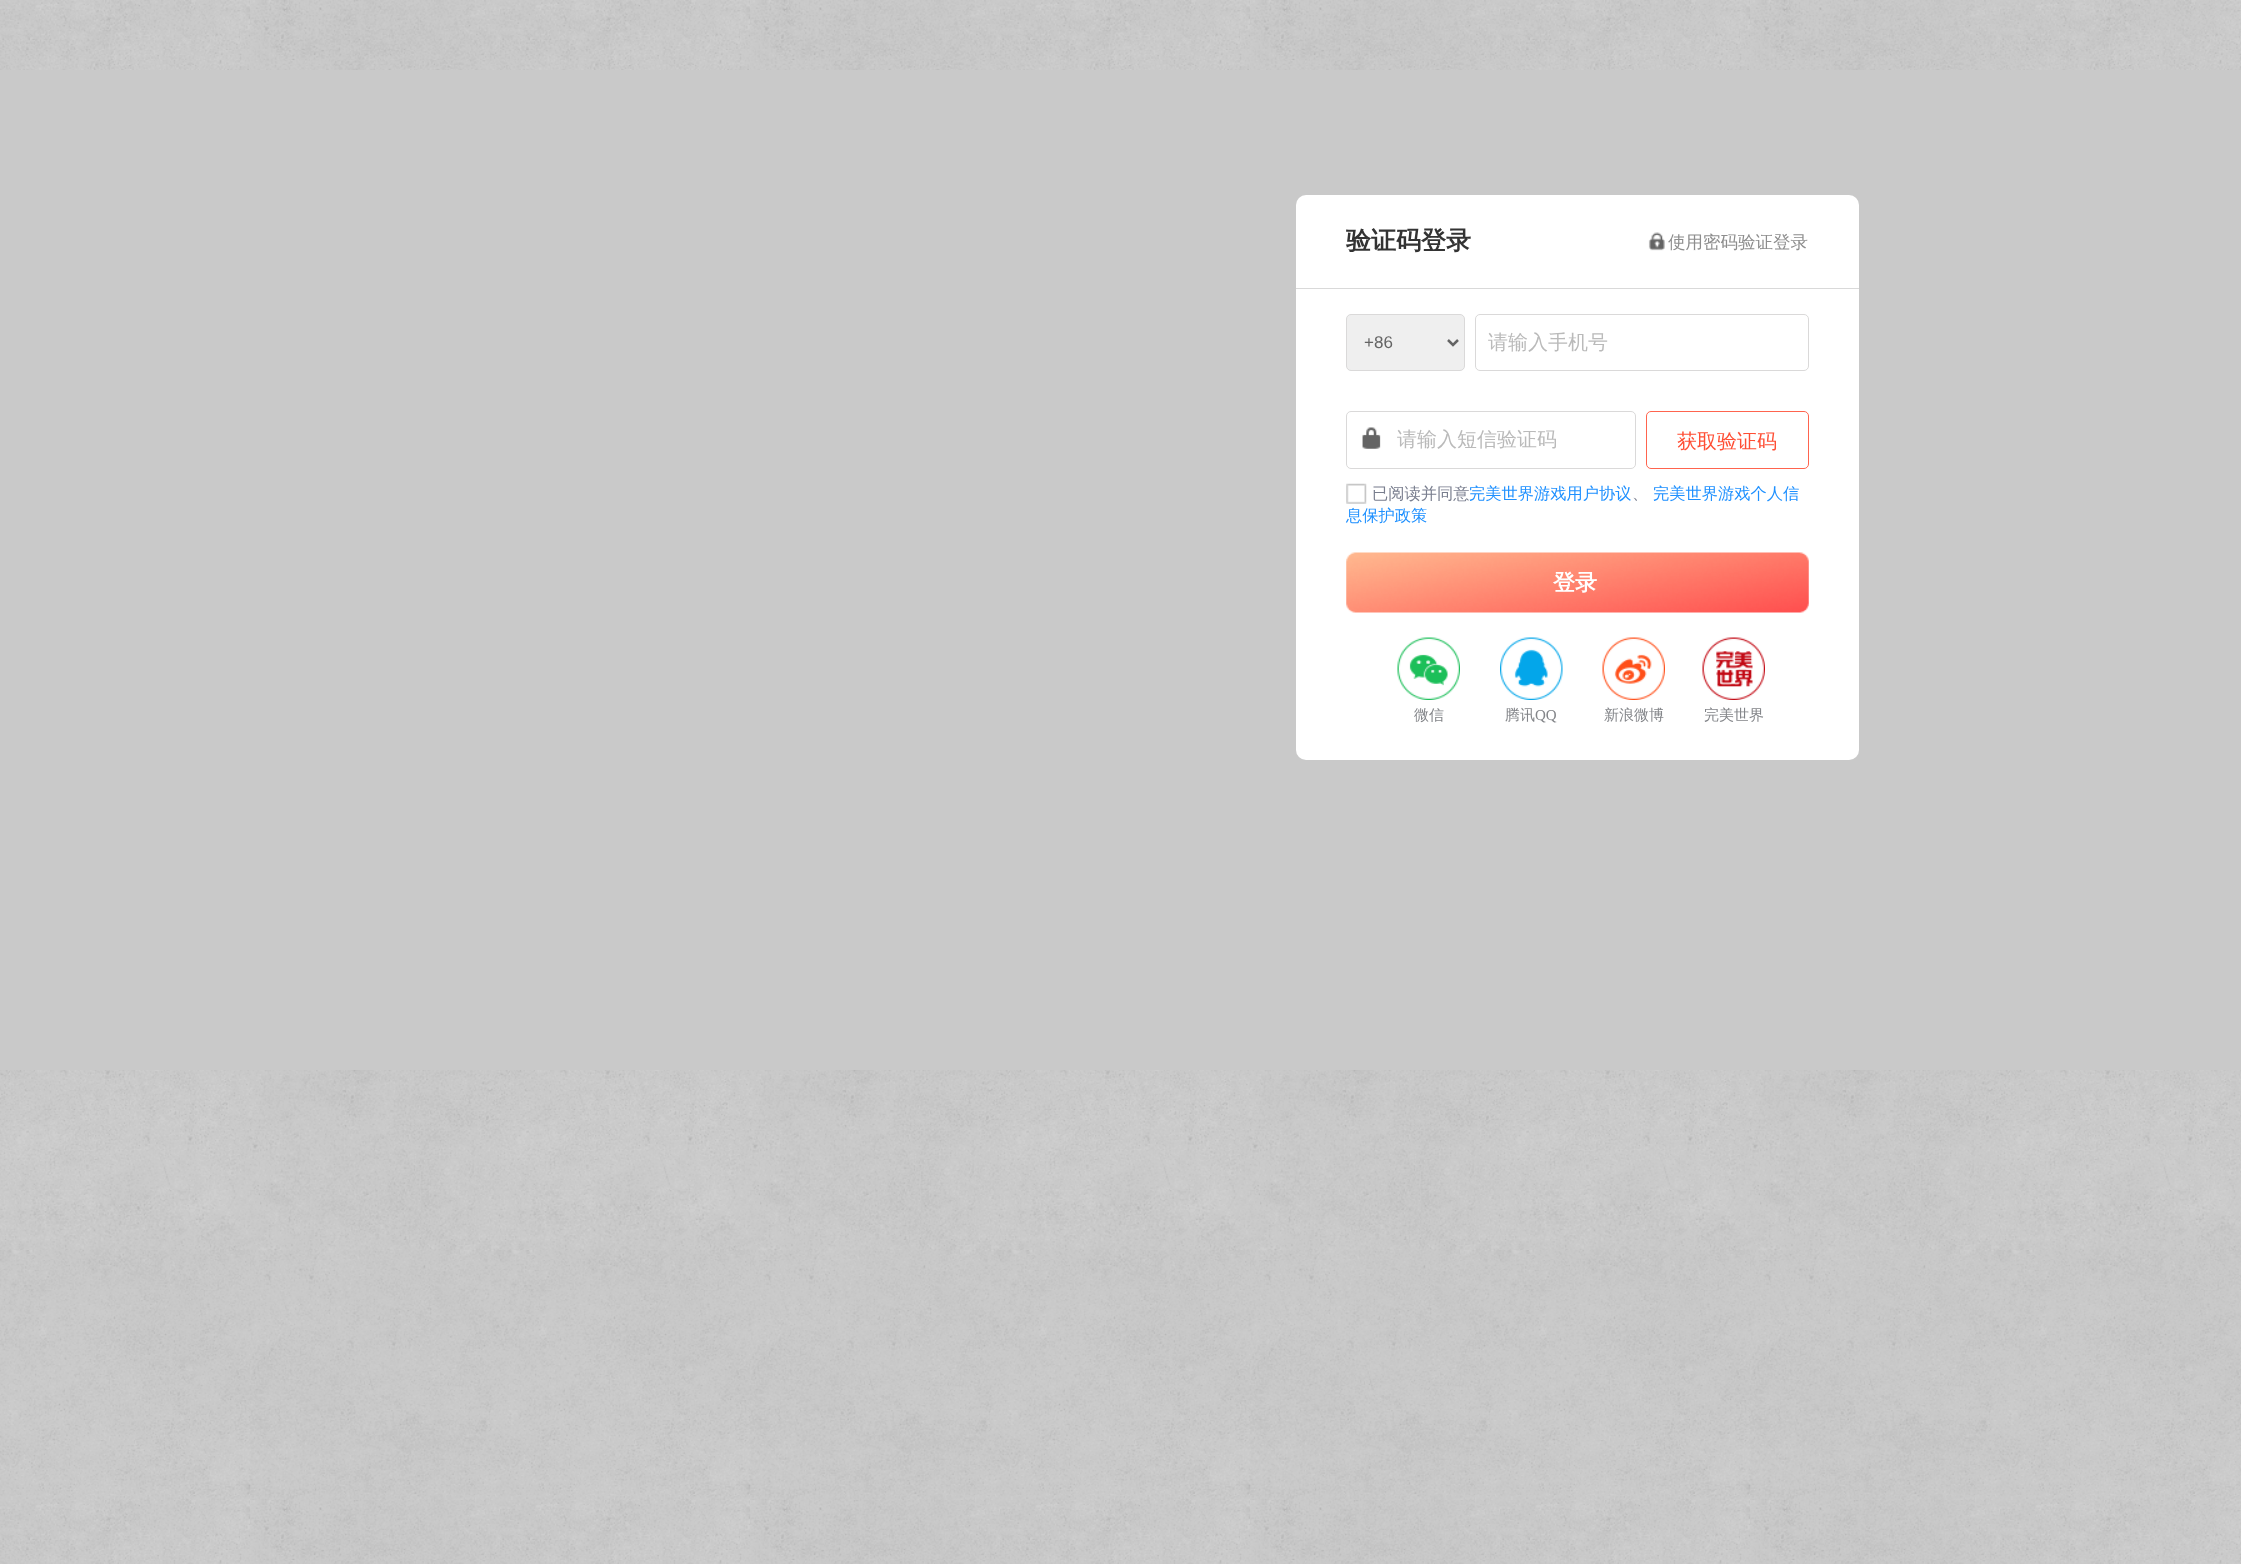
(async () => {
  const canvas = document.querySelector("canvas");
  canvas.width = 2241;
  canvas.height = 1564;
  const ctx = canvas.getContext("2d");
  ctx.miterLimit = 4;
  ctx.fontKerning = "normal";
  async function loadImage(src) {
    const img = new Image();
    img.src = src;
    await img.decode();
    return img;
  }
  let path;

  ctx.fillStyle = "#ffffff";
  ctx.fillRect(0, 0, 2241, 1564);
  ctx.drawImage(await loadImage("img/1.png"), 0, 0, 2241, 1564);
  ctx.fillStyle = "#c9c9c9";
  ctx.fillRect(0, 70, 2241, 1000);
  ctx.fillStyle = "#ffffff";
  ctx.beginPath();
  ctx.roundRect(1296, 195, 563, 565, 10);
  ctx.fill();
  ctx.fillStyle = "#d9d9d9";
  ctx.fillRect(1296, 288, 563, 1);
  ctx.drawImage(await loadImage("img/2.png"), 1648, 232, 17, 19);
  ctx.fillStyle = "#efefef";
  ctx.beginPath();
  ctx.roundRect(1346.5, 314.5, 118, 56, 4.5);
  ctx.fill();
  ctx.strokeStyle = "#dad9d9";
  ctx.stroke();
  path = new Path2D("M1448 340L1453 345L1458 340");
  ctx.strokeStyle = "#646464";
  ctx.lineWidth = 2.5;
  ctx.stroke(path);
  ctx.beginPath();
  ctx.roundRect(1475.5, 314.5, 333, 56, 4.5);
  ctx.strokeStyle = "#dad9d9";
  ctx.lineWidth = 1;
  ctx.stroke();
  ctx.beginPath();
  ctx.roundRect(1346.5, 411.5, 289, 57, 4.5);
  ctx.stroke();
  ctx.drawImage(await loadImage("img/3.png"), 1362, 427, 19, 22);
  ctx.beginPath();
  ctx.roundRect(1646.5, 411.5, 162, 57, 4.5);
  ctx.strokeStyle = "#ff644e";
  ctx.stroke();
  ctx.drawImage(await loadImage("img/4.png"), 1346, 483, 21, 21);
  ctx.drawImage(await loadImage("img/5.png"), 1346, 552, 463, 61);
  ctx.drawImage(await loadImage("img/6.png"), 1397, 637, 63, 63);
  ctx.drawImage(await loadImage("img/7.png"), 1500, 637, 63, 63);
  ctx.drawImage(await loadImage("img/8.png"), 1602, 637, 63, 63);
  ctx.drawImage(await loadImage("img/9.png"), 1702, 637, 63, 63);
  ctx.font = "bold 25px WenQuanYi Zen Hei";
  ctx.fillStyle = "#333333";
  ctx.fillText("验证码登录", 1346, 249);
  ctx.font = "500 17.5px WenQuanYi Zen Hei";
  ctx.fillStyle = "#8d8d8d";
  ctx.fillText("使用密码验证登录", 1668, 248);
  ctx.font = "17px Liberation Sans";
  ctx.fillStyle = "#646464";
  ctx.fillText("+86", 1364, 348);
  ctx.font = "500 20px WenQuanYi Zen Hei";
  ctx.fillStyle = "#bababa";
  ctx.fillText("请输入手机号", 1488, 349);
  ctx.fillText("请输入短信验证码", 1397, 446);
  ctx.fillStyle = "#ff4e34";
  ctx.fillText("获取验证码", 1677, 448);
  ctx.font = "500 16.25px WenQuanYi Zen Hei";
  ctx.fillStyle = "#797e8e";
  ctx.fillText("已阅读并同意", 1372, 499);
  ctx.fillStyle = "#1e90ff";
  ctx.fillText("完美世界游戏用户协议", 1469, 499);
  ctx.fillStyle = "#797e8e";
  ctx.fillText("、", 1632, 499);
  ctx.fillStyle = "#1e90ff";
  ctx.fillText("完美世界游戏个人信", 1653, 499);
  ctx.fillText("息保护政策", 1346, 521);
  ctx.font = "bold 22px WenQuanYi Zen Hei";
  ctx.fillStyle = "#ffffff";
  ctx.fillText("登录", 1553, 590);
  ctx.font = "500 15px WenQuanYi Zen Hei";
  ctx.fillStyle = "#838589";
  ctx.fillText("微信", 1414, 720);
  ctx.fillText("腾讯", 1505, 720);
  ctx.font = "15px Liberation Serif";
  ctx.fillText("QQ", 1535, 720);
  ctx.font = "500 15px WenQuanYi Zen Hei";
  ctx.fillText("新浪微博", 1604, 720);
  ctx.fillText("完美世界", 1704, 720);
})();
